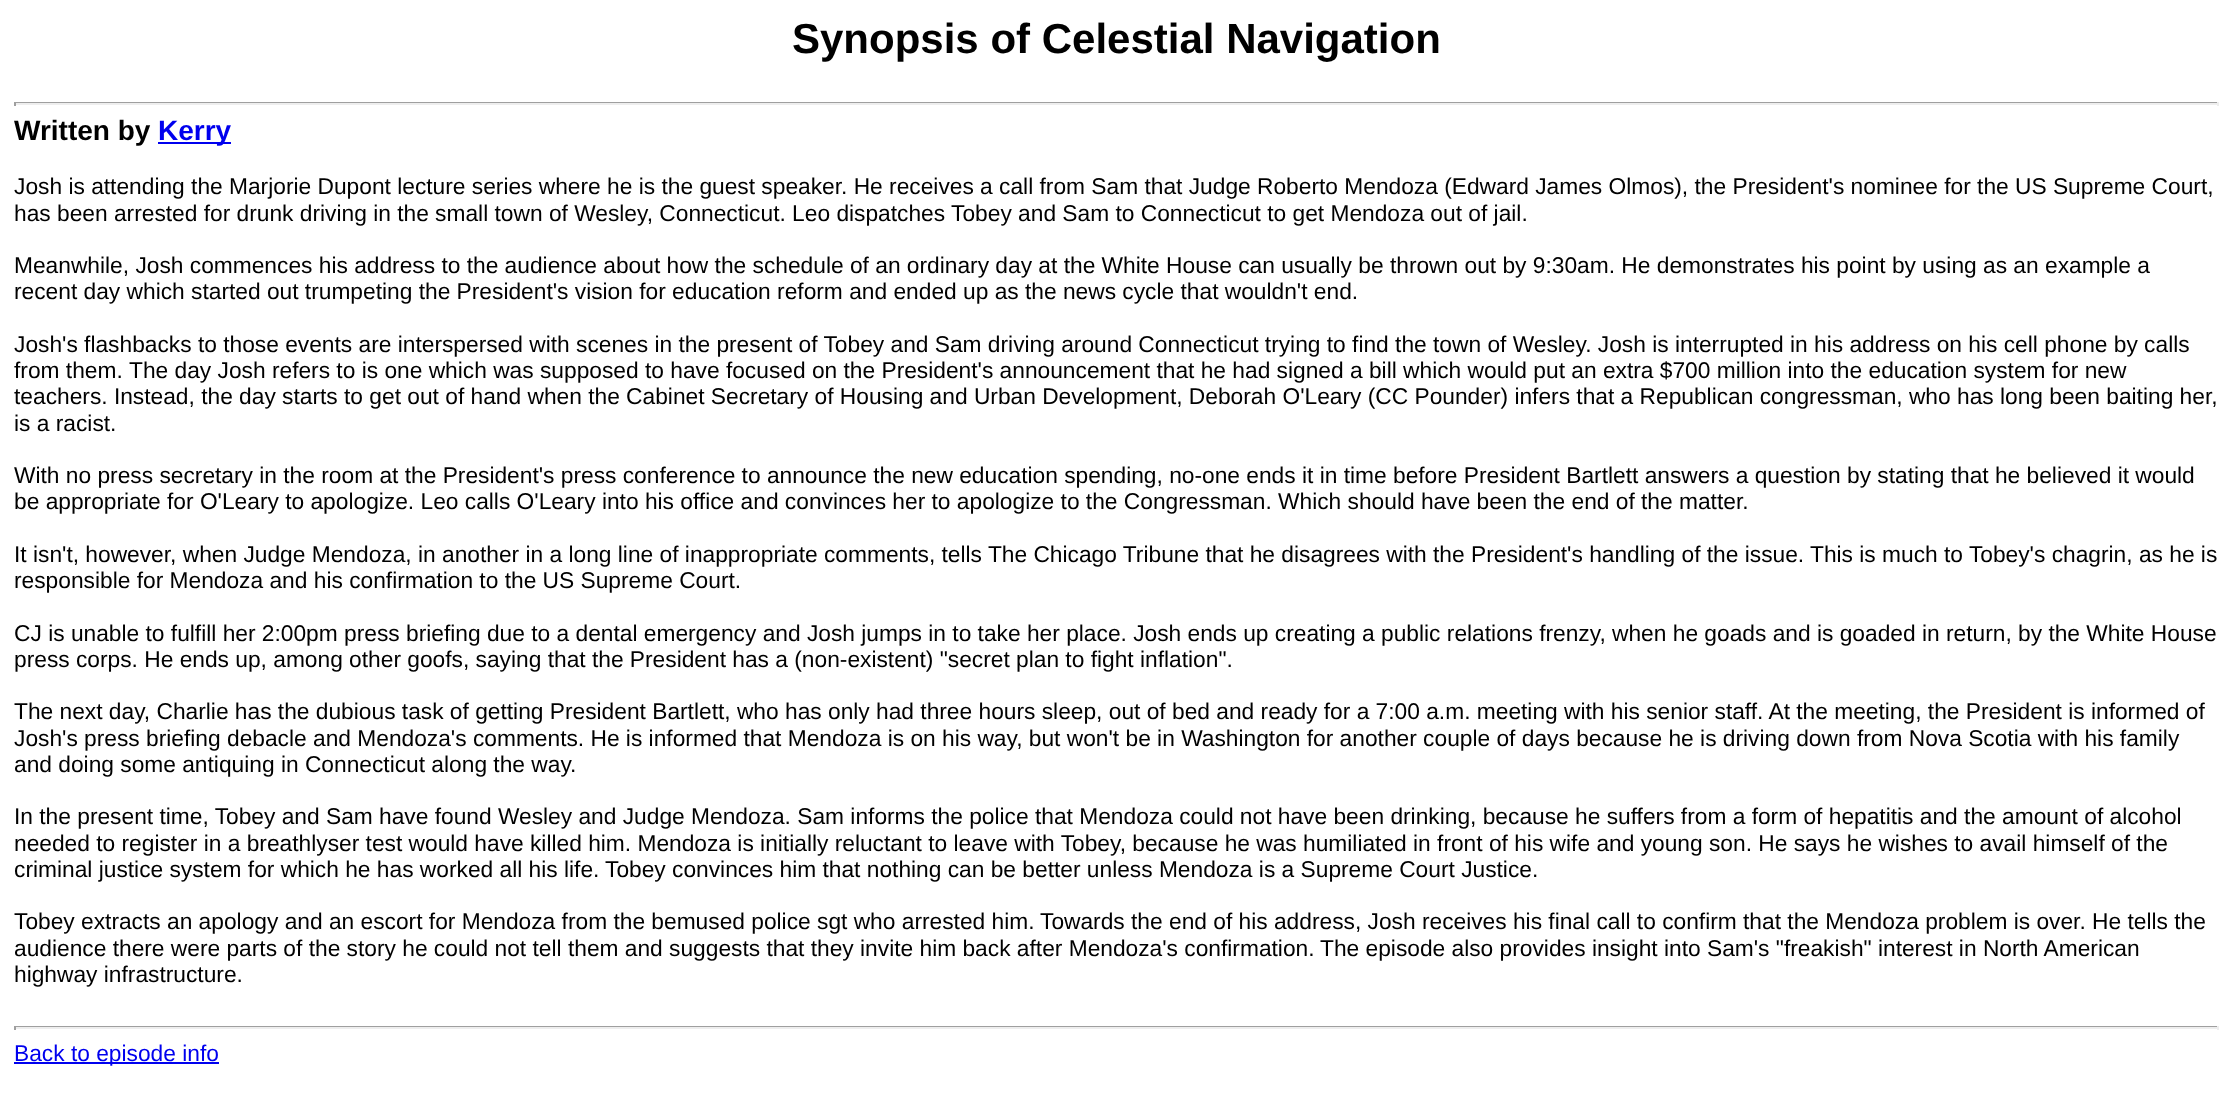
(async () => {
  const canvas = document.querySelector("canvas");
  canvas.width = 2233;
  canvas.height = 1105;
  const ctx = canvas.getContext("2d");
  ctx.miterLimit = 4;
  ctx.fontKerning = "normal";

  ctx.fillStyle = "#ffffff";
  ctx.fillRect(0, 0, 2233, 1105);
  for (const [x, y, w, h, color] of [
    [14, 102, 2205, 1, "#9f9f9f"],
    [2217, 102, 2, 4, "#eeeeee"],
    [14, 103, 2205, 2, "#eeeeee"],
    [14, 102, 2, 4, "#9f9f9f"],
    [158, 142, 73, 2, "#0000ee"],
    [14, 1026, 2205, 1, "#9f9f9f"],
    [2217, 1026, 2, 4, "#eeeeee"],
    [14, 1027, 2205, 2, "#eeeeee"],
    [14, 1026, 2, 4, "#9f9f9f"],
    [14, 1062, 205, 2, "#0000ee"],
  ]) {
    ctx.fillStyle = color;
    ctx.fillRect(x, y, w, h);
  }
  ctx.font = "bold 42px Liberation Sans";
  ctx.fillStyle = "#000000";
  ctx.fillText("Synopsis of Celestial Navigation", 792, 53);
  ctx.font = "bold 28px Liberation Sans";
  ctx.fillText("Written by", 14, 140);
  ctx.fillStyle = "#0000ee";
  ctx.fillText("Kerry", 158, 140);
  ctx.font = "22.75px Liberation Sans";
  ctx.fillStyle = "#000000";
  for (const [text, x, y] of [
    ["Josh is attending the Marjorie Dupont lecture series where he is the guest speaker. He receives a call from Sam that Judge Roberto Mendoza (Edward James Olmos), the President's nominee for the US Supreme Court,", 14, 194],
    ["has been arrested for drunk driving in the small town of Wesley, Connecticut. Leo dispatches Tobey and Sam to Connecticut to get Mendoza out of jail.", 14, 221],
    ["Meanwhile, Josh commences his address to the audience about how the schedule of an ordinary day at the White House can usually be thrown out by 9:30am. He demonstrates his point by using as an example a", 14, 273],
    ["recent day which started out trumpeting the President's vision for education reform and ended up as the news cycle that wouldn't end.", 14, 299],
    ["Josh's flashbacks to those events are interspersed with scenes in the present of Tobey and Sam driving around Connecticut trying to find the town of Wesley. Josh is interrupted in his address on his cell phone by calls", 14, 352],
    ["from them.", 14, 378],
    ["The day Josh refers to is one which was supposed to have focused on the President's announcement that he had signed a bill which would put an extra $700 million into the education system for new", 129, 378],
    ["teachers. Instead, the day starts to get out of hand when the Cabinet Secretary of Housing and Urban Development, Deborah O'Leary (CC Pounder) infers that a Republican congressman, who has long been baiting her,", 14, 404],
    ["is a racist.", 14, 431],
    ["With no press secretary in the room at the President's press conference to announce the new education spending, no-one ends it in time before President Bartlett answers a question by stating that he believed it would", 14, 483],
    ["be appropriate for O'Leary to apologize. Leo calls O'Leary into his office and convinces her to apologize to the Congressman. Which should have been the end of the matter.", 14, 509],
    ["It isn't, however, when Judge Mendoza, in another in a long line of inappropriate comments, tells The Chicago Tribune that he disagrees with the President's handling of the issue.", 14, 562],
    ["This is much to Tobey's chagrin, as he is", 1810, 562],
    ["responsible for Mendoza and his confirmation to the US Supreme Court.", 14, 588],
    ["CJ is unable to fulfill her 2:00pm press briefing due to a dental emergency and Josh jumps in to take her place. Josh ends up creating a public relations frenzy, when he goads and is goaded in return, by the White House", 14, 641],
    ["press corps. He ends up, among other goofs, saying that the President has a (non-existent) \"secret plan to fight inflation\".", 14, 667],
    ["The next day, Charlie has the dubious task of getting President Bartlett, who has only had three hours sleep, out of bed and ready for a 7:00 a.m. meeting with his senior staff. At the meeting, the President is informed of", 14, 719],
    ["Josh's press briefing debacle and Mendoza's comments. He is informed that Mendoza is on his way, but won't be in Washington for another couple of days because he is driving down from Nova Scotia with his family", 14, 746],
    ["and doing some antiquing in Connecticut along the way.", 14, 772],
    ["In the present time, Tobey and Sam have found Wesley and Judge Mendoza. Sam informs the police that Mendoza could not have been drinking, because he suffers from a form of hepatitis and the amount of alcohol", 14, 824],
    ["needed to register in a breathlyser test would have killed him. Mendoza is initially reluctant to leave with Tobey, because he was humiliated in front of his wife and young son. He says he wishes to avail himself of the", 14, 851],
    ["criminal justice system for which he has worked all his life.", 14, 877],
    ["Tobey convinces him that nothing can be better unless Mendoza is a Supreme Court Justice.", 605, 877],
    ["Tobey extracts an apology and an escort for Mendoza from the bemused police sgt who arrested him.", 14, 929],
    ["Towards the end of his address, Josh receives his final call to confirm that the Mendoza problem is over. He tells the", 1040, 929],
    ["audience there were parts of the story he could not tell them and suggests that they invite him back after Mendoza's confirmation.", 14, 956],
    ["The episode also provides insight into Sam's \"freakish\" interest in North American", 1320, 956],
    ["highway infrastructure.", 14, 982],
  ]) {
    ctx.fillText(text, x, y);
  }
  ctx.fillStyle = "#0000ee";
  ctx.fillText("Back to episode info", 14, 1061);
})();
